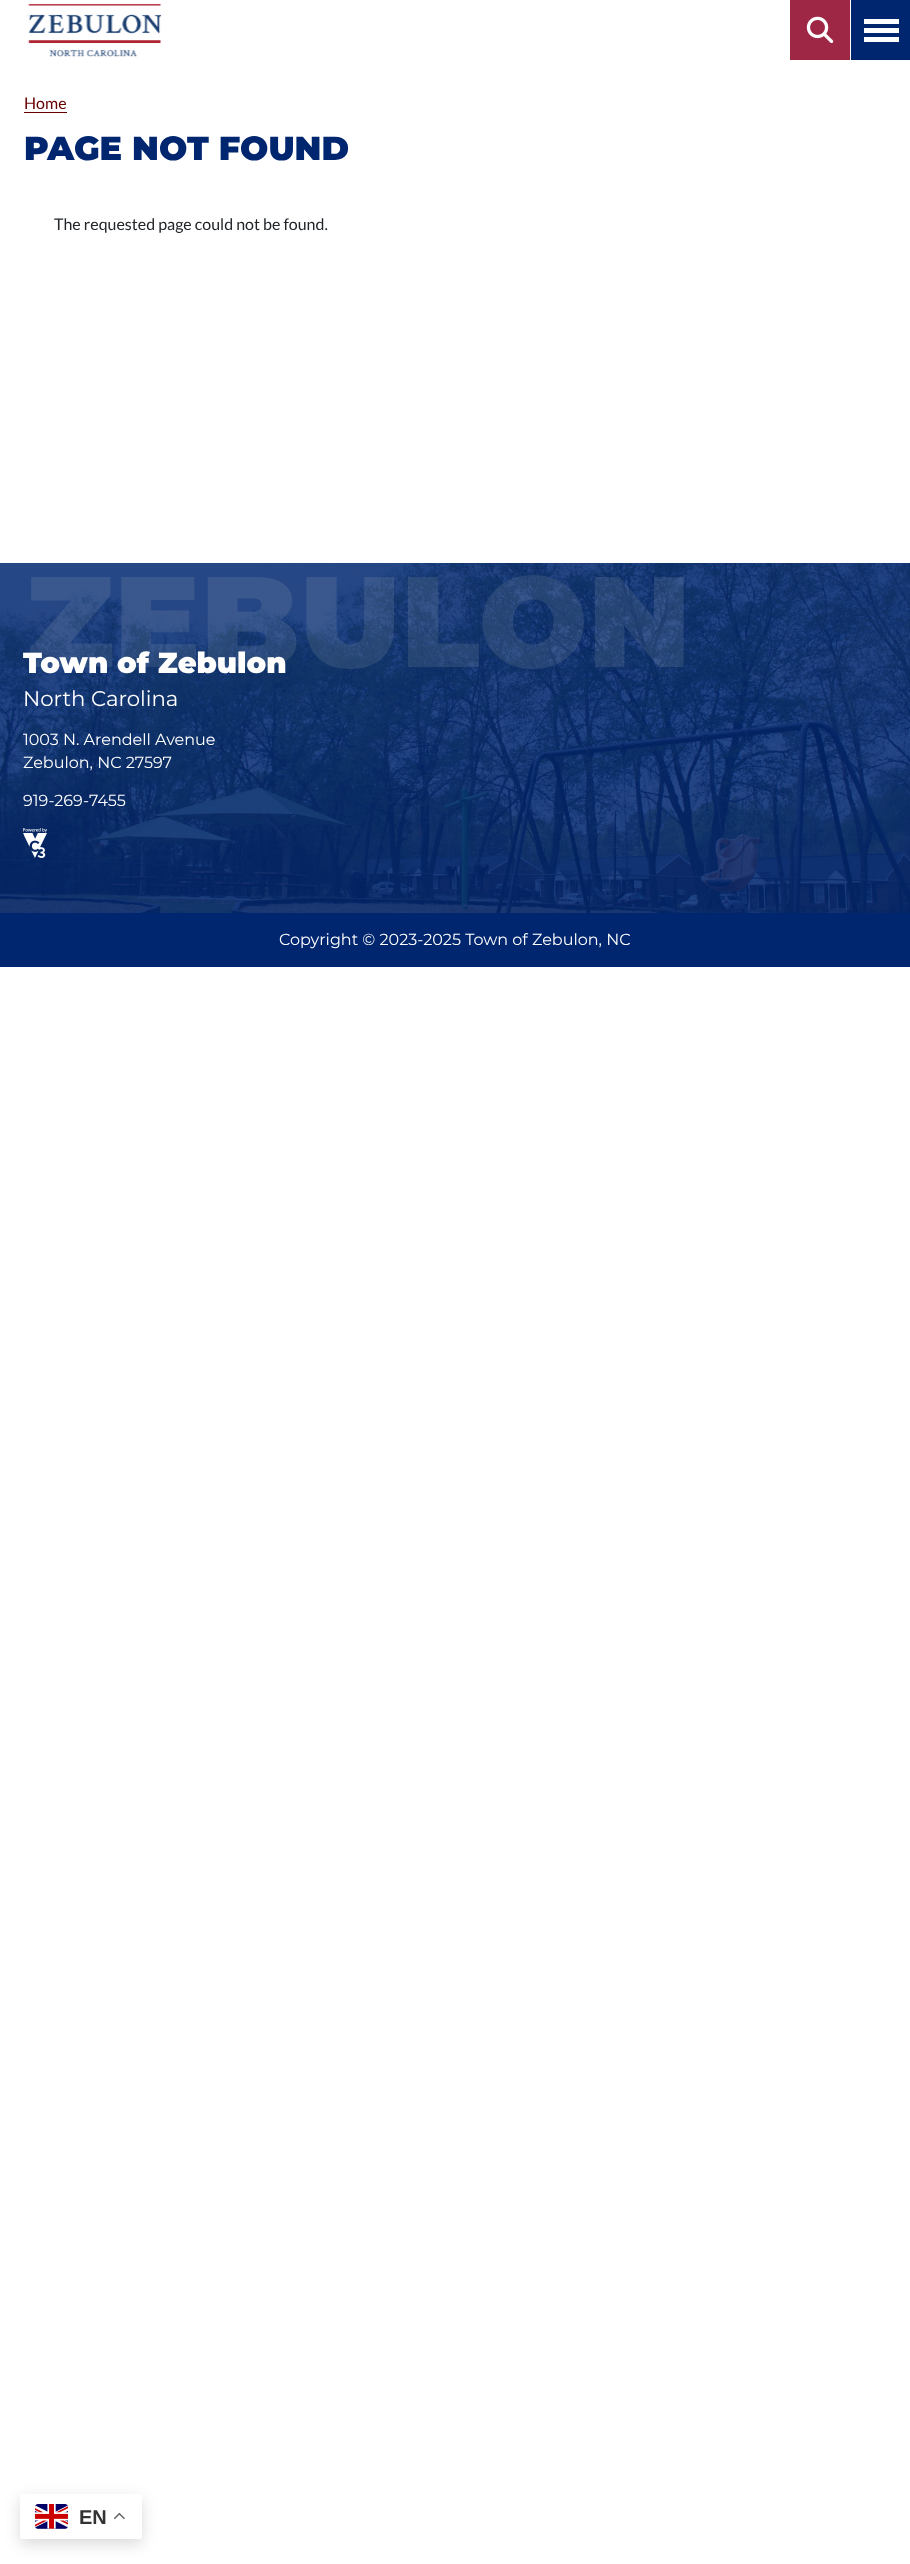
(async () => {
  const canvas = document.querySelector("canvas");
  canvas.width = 910;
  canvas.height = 2564;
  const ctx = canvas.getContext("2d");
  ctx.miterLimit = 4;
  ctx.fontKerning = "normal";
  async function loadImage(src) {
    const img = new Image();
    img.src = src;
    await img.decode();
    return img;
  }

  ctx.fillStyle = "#ffffff";
  ctx.fillRect(0, 0, 910, 2564);
  ctx.drawImage(await loadImage("img/1.png"), 27, 3, 135, 54);
  ctx.fillStyle = "#9d2745";
  ctx.fillRect(790, 0, 60, 60);
  ctx.drawImage(await loadImage("img/2.png"), 806, 16, 28, 28);
  for (const [x, y, w, h, color] of [
    [851, 0, 59, 60, "#00266f"],
    [864, 19, 35, 5, "#ffffff"],
    [864, 28, 35, 5, "#ffffff"],
    [864, 37, 35, 5, "#ffffff"],
    [24, 112, 43, 1, "#650000"],
  ]) {
    ctx.fillStyle = color;
    ctx.fillRect(x, y, w, h);
  }
  ctx.fillStyle = "rgba(0, 0, 0, 0.15)";
  ctx.filter = "blur(7.5px)";
  ctx.beginPath();
  ctx.roundRect(20, 2499, 122, 45, 2);
  ctx.fill();
  ctx.filter = "none";
  ctx.fillStyle = "#ffffff";
  ctx.beginPath();
  ctx.roundRect(20, 2494, 122, 45, 2);
  ctx.fill();
  ctx.drawImage(await loadImage("img/3.png"), 35, 2504, 33, 25);
  ctx.drawImage(await loadImage("img/4.png"), 114, 2512, 11, 8);
  ctx.drawImage(await loadImage("img/5.png"), 0, 563, 910, 350);
  ctx.drawImage(await loadImage("img/6.png"), 30, 575, 654, 94);
  ctx.drawImage(await loadImage("img/7.png"), 23, 828, 24, 30);
  ctx.fillStyle = "#00266f";
  ctx.fillRect(0, 913, 910, 54);
  ctx.font = "16px Lato";
  ctx.fillStyle = "#650000";
  ctx.fillText("Home", 24, 109);
  ctx.font = "900 33.4px Montserrat";
  ctx.fillStyle = "#00266f";
  ctx.fillText("PAGE NOT FOUND", 24, 160);
  ctx.font = "16px Lato";
  ctx.fillStyle = "#212529";
  ctx.fillText("The requested page could not be found.", 54, 230);
  ctx.font = "bold 20px Liberation Sans";
  ctx.fillStyle = "#333333";
  ctx.fillText("EN", 79, 2524);
  ctx.font = "900 29px Montserrat";
  ctx.fillStyle = "#ffffff";
  ctx.fillText("Town of Zebulon", 23, 673);
  ctx.font = "21.25px Montserrat";
  ctx.fillText("North Carolina", 23, 706);
  ctx.font = "16px Montserrat";
  for (const [text, x, y] of [
    ["1003 N. Arendell Avenue", 23, 745],
    ["Zebulon, NC 27597", 23, 768],
    ["919-269-7455", 23, 806],
    ["Copyright © 2023-2025 Town of Zebulon, NC", 279, 945],
  ]) {
    ctx.fillText(text, x, y);
  }
})();
